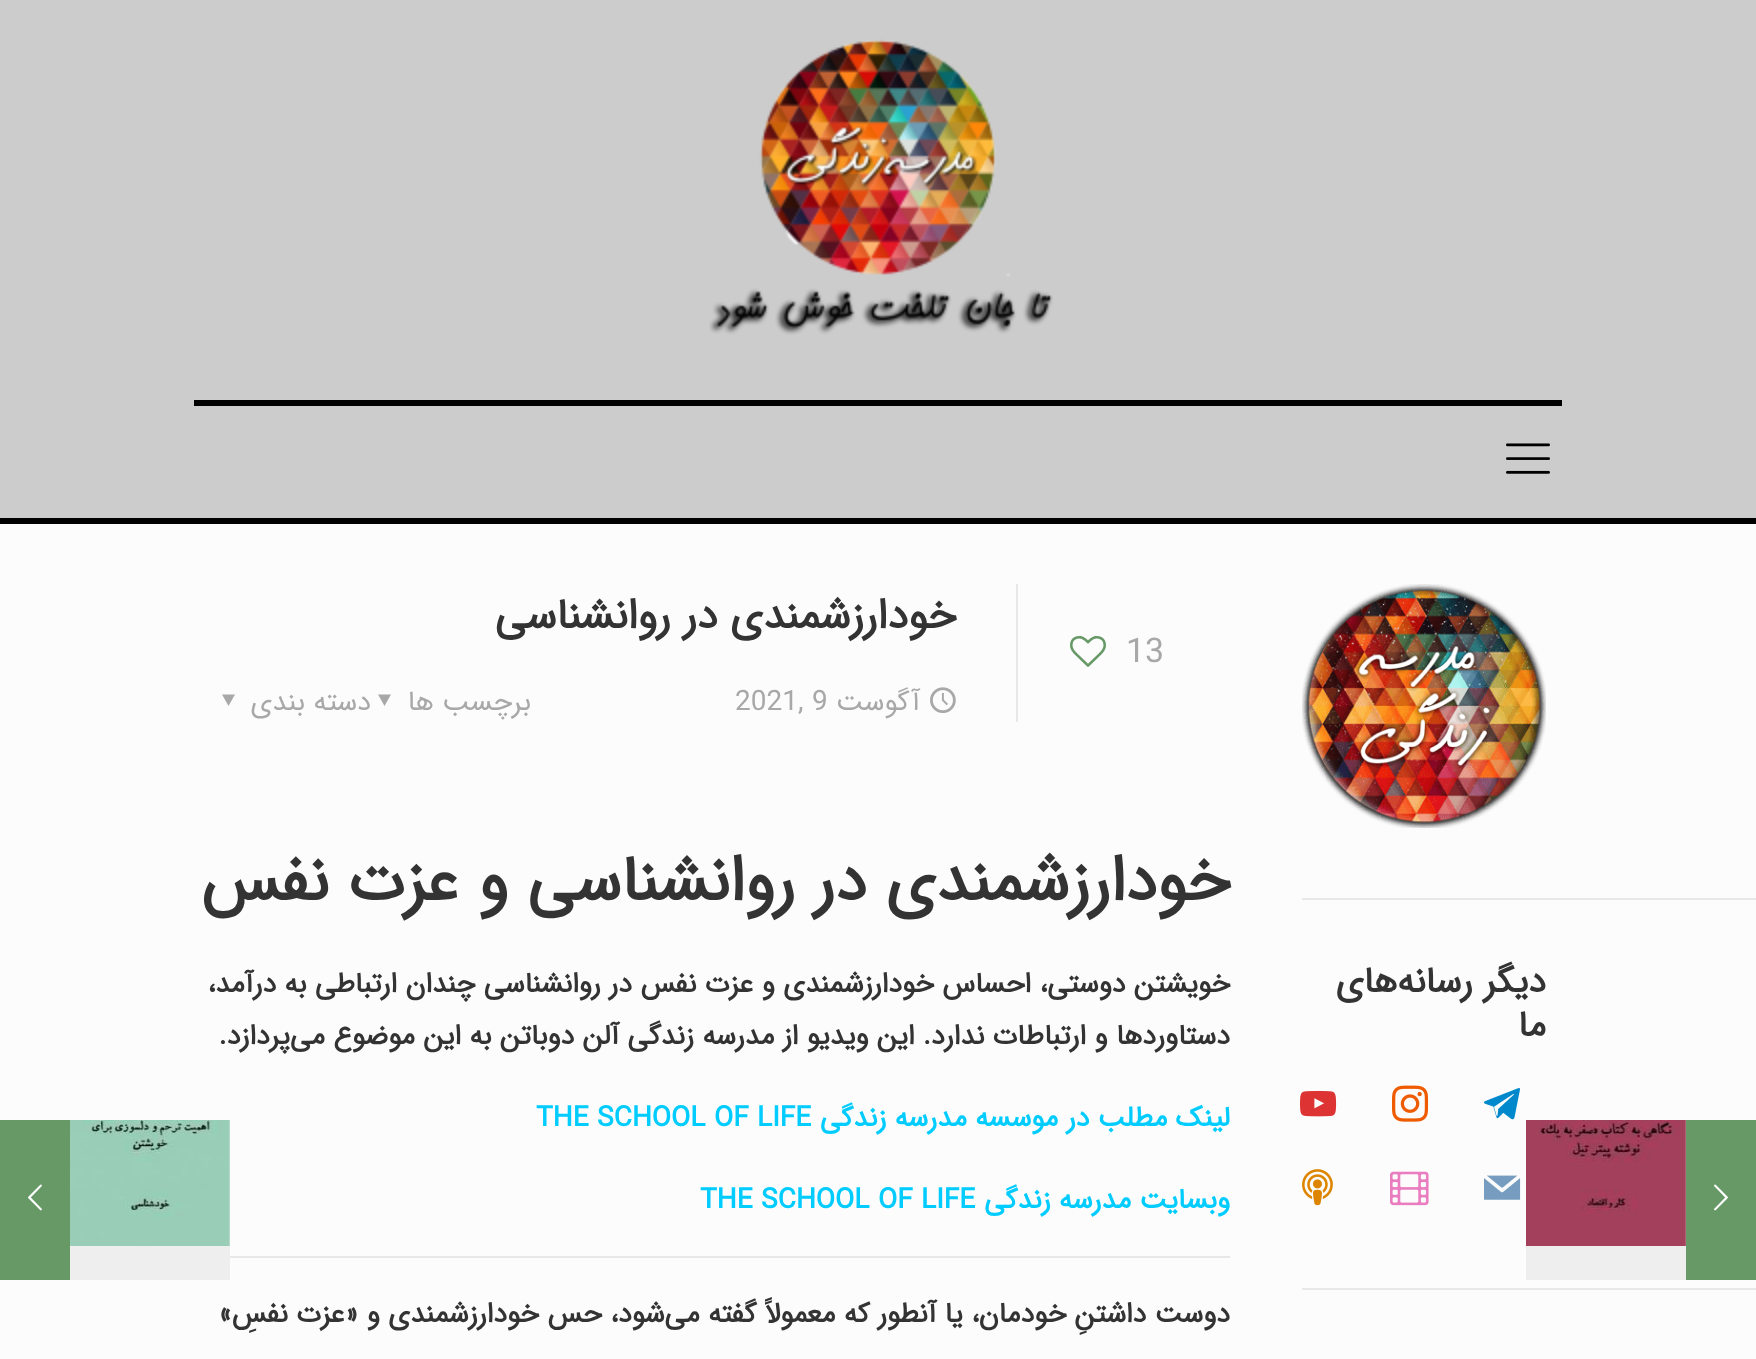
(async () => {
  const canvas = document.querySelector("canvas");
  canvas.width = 1756;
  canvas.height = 1359;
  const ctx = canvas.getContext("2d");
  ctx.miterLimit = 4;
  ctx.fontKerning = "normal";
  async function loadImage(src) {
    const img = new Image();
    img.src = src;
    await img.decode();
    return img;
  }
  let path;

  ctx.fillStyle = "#fcfcfc";
  ctx.fillRect(0, 0, 1756, 1359);
  ctx.fillStyle = "#669966";
  ctx.fillRect(1686, 1120, 70, 160);
  ctx.drawImage(await loadImage("img/1.png"), 1714, 1184, 14, 27);
  ctx.fillStyle = "#eeeeee";
  ctx.fillRect(1526, 1120, 160, 160);
  ctx.drawImage(await loadImage("img/2.png"), 1526, 1120, 160, 126);
  for (const [x, y, w, h, color] of [
    [0, 0, 1756, 518, "#cccccc"],
    [0, 518, 1756, 6, "#000000"],
    [194, 400, 1368, 6, "#000000"],
  ]) {
    ctx.fillStyle = color;
    ctx.fillRect(x, y, w, h);
  }
  ctx.drawImage(await loadImage("img/3.png"), 709, 39, 344, 296);
  ctx.drawImage(await loadImage("img/4.png"), 1506, 443, 44, 31);
  ctx.drawImage(await loadImage("img/5.png"), 1302, 584, 244, 244);
  ctx.fillStyle = "#e8e8e8";
  ctx.fillRect(1302, 898, 454, 2);
  ctx.drawImage(await loadImage("img/6.png"), 1484, 1088, 37, 32);
  ctx.drawImage(await loadImage("img/7.png"), 1392, 1085, 37, 37);
  ctx.drawImage(await loadImage("img/8.png"), 1300, 1090, 37, 27);
  ctx.drawImage(await loadImage("img/9.png"), 1484, 1175, 37, 25);
  ctx.drawImage(await loadImage("img/10.png"), 1390, 1171, 39, 35);
  ctx.drawImage(await loadImage("img/11.png"), 1302, 1169, 31, 37);
  ctx.fillRect(1302, 1288, 454, 2);
  ctx.drawImage(await loadImage("img/12.png"), 1070, 636, 36, 31);
  ctx.fillRect(1016, 584, 2, 138);
  ctx.drawImage(await loadImage("img/13.png"), 930, 687, 26, 26);
  ctx.fillStyle = "#a8a8a8";
  path = new Path2D("M391 694.5L384.5 706L378 694.5Z");
  ctx.fill(path);
  path = new Path2D("M235 694.5L228.5 706L222 694.5Z");
  ctx.fill(path);
  ctx.fillStyle = "#e8e8e8";
  ctx.fillRect(230, 1256, 1000, 2);
  ctx.fillStyle = "#eeeeee";
  ctx.fillRect(70, 1120, 160, 160);
  ctx.drawImage(await loadImage("img/14.png"), 70, 1120, 160, 126);
  ctx.fillStyle = "#669966";
  ctx.fillRect(0, 1120, 70, 160);
  ctx.drawImage(await loadImage("img/15.png"), 28, 1184, 14, 27);
  ctx.direction = "rtl";
  ctx.font = "bold 36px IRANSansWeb";
  ctx.fillStyle = "#333333";
  ctx.fillText("دیگر رسانه‌های", 1546, 992);
  ctx.fillText("ما", 1546, 1036);
  ctx.direction = "ltr";
  ctx.font = "34px IRANSansWeb";
  ctx.fillStyle = "#a8a8a8";
  ctx.fillText("13", 1126, 662);
  ctx.direction = "rtl";
  ctx.font = "bold 42px IRANSansWeb";
  ctx.fillStyle = "#333333";
  ctx.fillText("خودارزشمندی در روانشناسی", 956, 628);
  ctx.font = "28px IRANSansWeb";
  ctx.fillStyle = "#a8a8a8";
  ctx.fillText("آگوست", 920, 710);
  ctx.direction = "ltr";
  ctx.fillText("2021, 9", 735, 710);
  ctx.direction = "rtl";
  ctx.fillText("برچسب ها", 531, 710);
  ctx.fillText("دسته بندی", 371, 710);
  ctx.font = "bold 64px IRANSansWeb";
  ctx.fillStyle = "#333333";
  ctx.fillText("خودارزشمندی در روانشناسی و عزت نفس", 1230, 900);
  ctx.font = "bold 28px IRANSansWeb";
  ctx.fillText("خویشتن دوستی، احساس خودارزشمندی و عزت نفس در روانشناسی چندان ارتباطی به درآمد،", 1230, 992);
  ctx.fillText("دستاوردها و ارتباطات ندارد. این ویدیو از مدرسه زندگی آلن دوباتن به این موضوع می‌پردازد.", 1230, 1044);
  ctx.fillStyle = "#00ccff";
  ctx.fillText("لینک مطلب در موسسه مدرسه زندگی", 1230, 1126);
  ctx.direction = "ltr";
  ctx.fillText("THE SCHOOL OF LIFE", 536, 1126);
  ctx.direction = "rtl";
  ctx.fillText("وبسایت مدرسه زندگی", 1230, 1208);
  ctx.direction = "ltr";
  ctx.fillText("THE SCHOOL OF LIFE", 700, 1208);
  ctx.direction = "rtl";
  ctx.fillStyle = "#333333";
  ctx.fillText("دوست داشتنِ خودمان، یا آنطور که معمولاً گفته می‌شود، حس خودارزشمندی و «عزت نفسِ»", 1230, 1322);
})();
